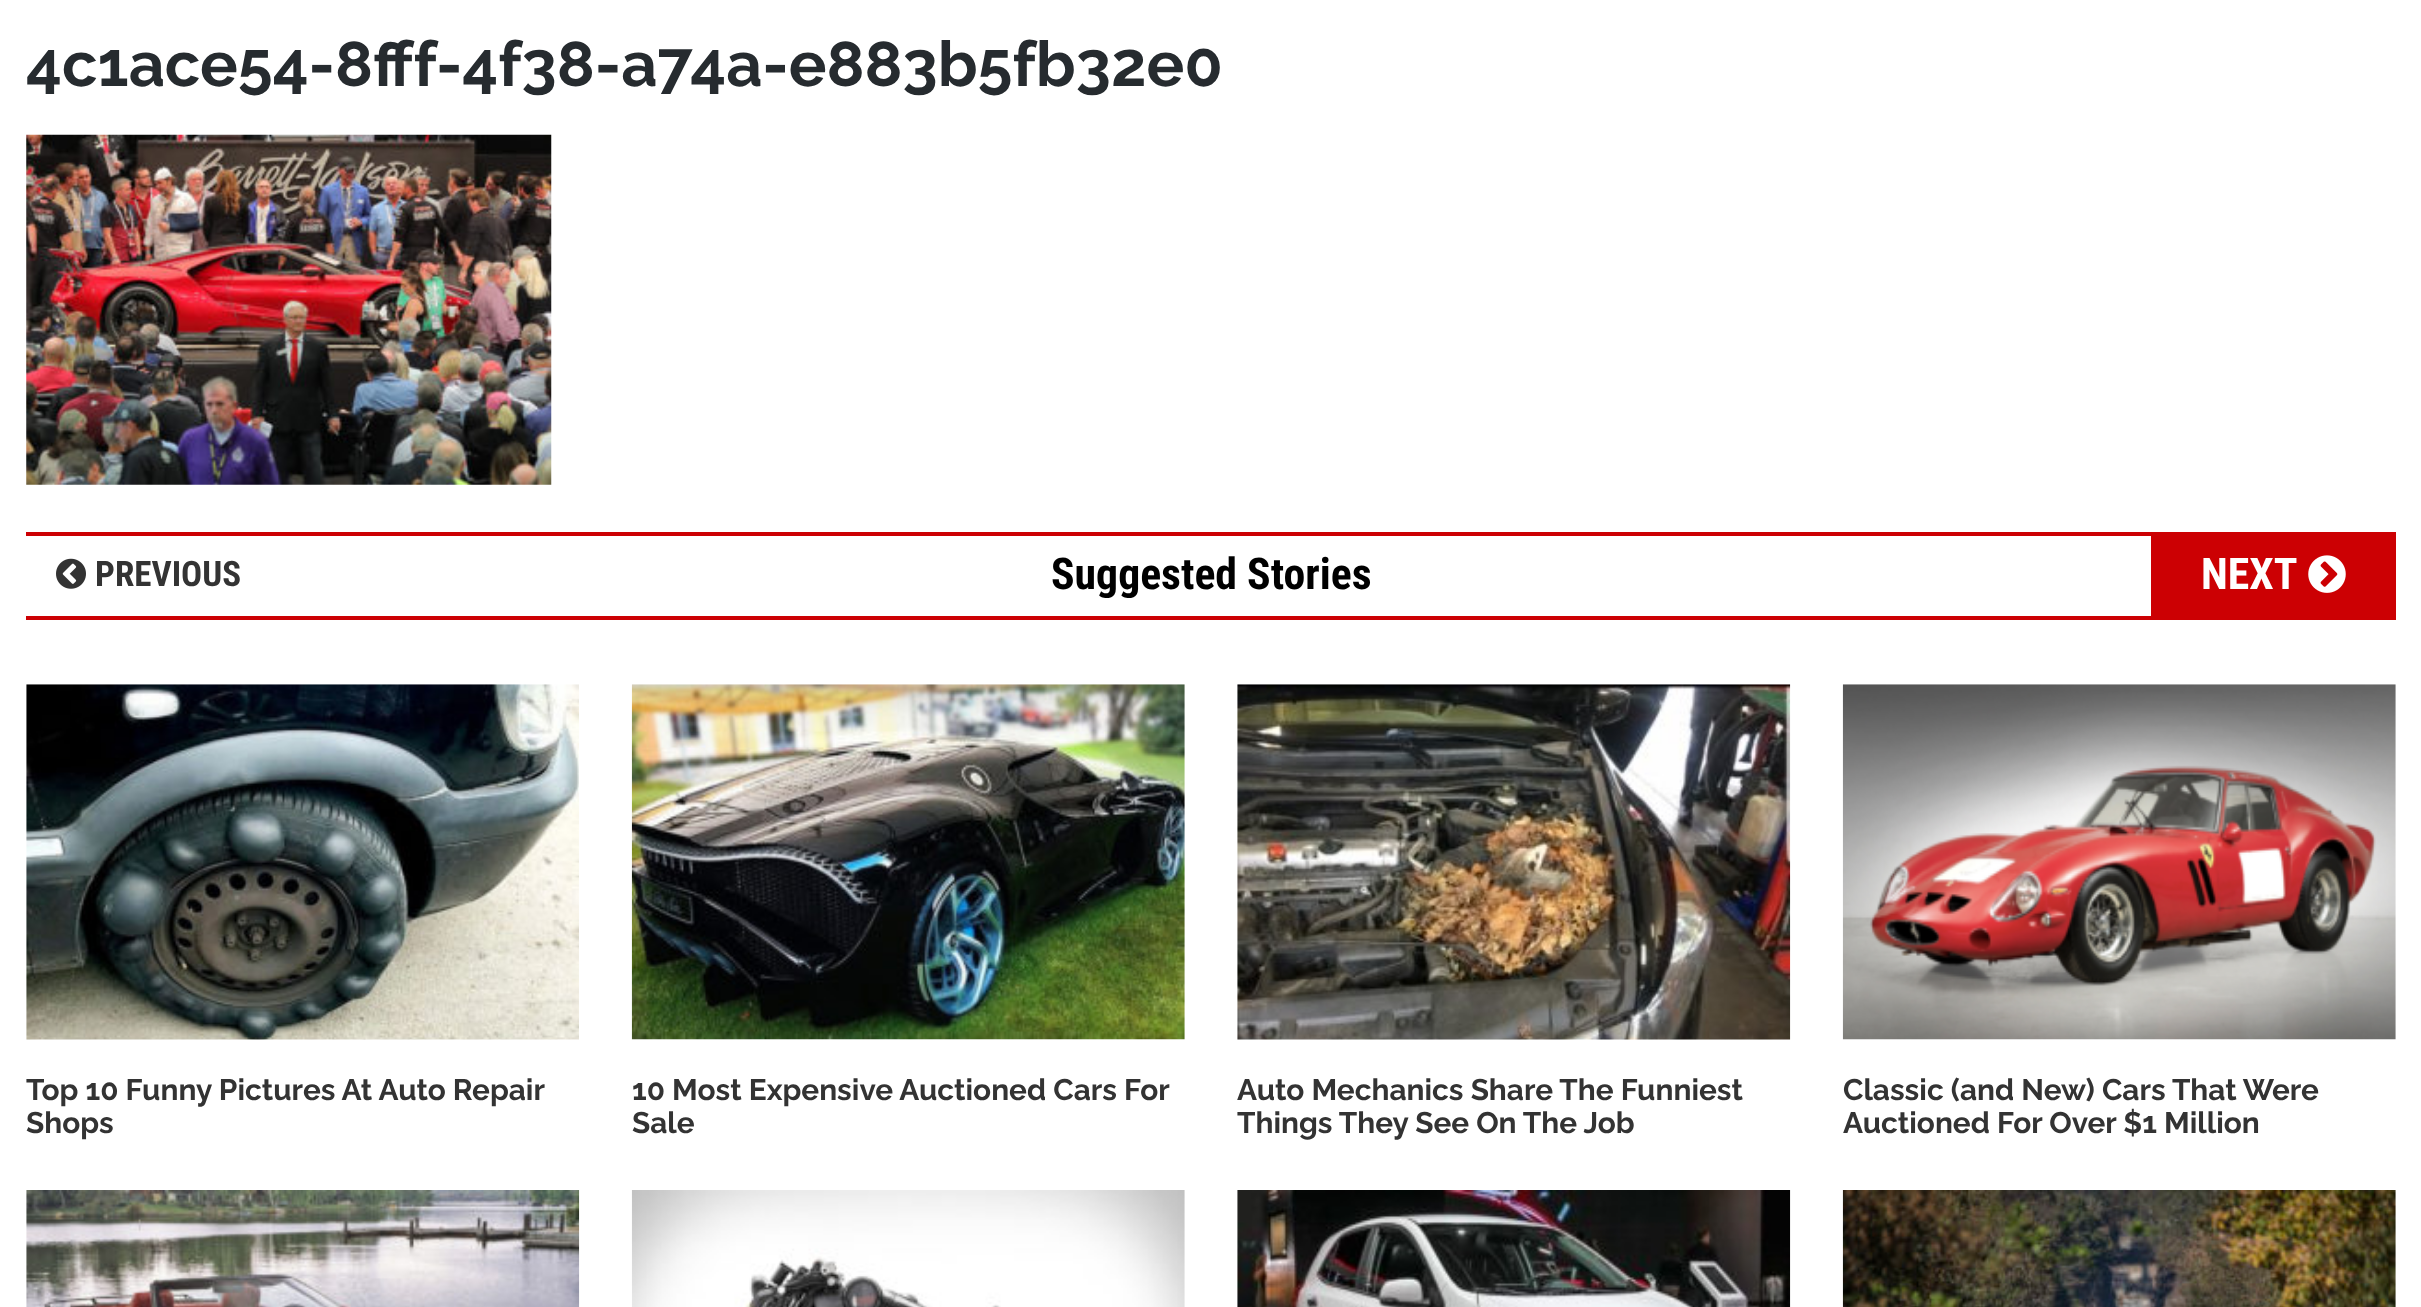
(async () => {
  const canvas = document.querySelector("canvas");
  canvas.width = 2421;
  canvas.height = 1307;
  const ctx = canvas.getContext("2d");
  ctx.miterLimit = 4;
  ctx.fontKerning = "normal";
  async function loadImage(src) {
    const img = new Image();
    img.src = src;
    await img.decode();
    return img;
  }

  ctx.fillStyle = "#ffffff";
  ctx.fillRect(0, 0, 2421, 1307);
  ctx.drawImage(await loadImage("img/1.png"), 26, 134, 526, 351);
  ctx.fillStyle = "#cc0003";
  ctx.fillRect(26, 532, 2370, 4);
  ctx.fillRect(26, 616, 2370, 4);
  ctx.drawImage(await loadImage("img/2.png"), 56, 558, 30, 31);
  ctx.fillRect(2151, 536, 245, 80);
  ctx.drawImage(await loadImage("img/3.png"), 2308, 555, 38, 38);
  ctx.drawImage(await loadImage("img/4.png"), 26, 684, 553, 356);
  ctx.drawImage(await loadImage("img/5.png"), 631, 684, 554, 356);
  ctx.drawImage(await loadImage("img/6.png"), 1237, 684, 554, 356);
  ctx.drawImage(await loadImage("img/7.png"), 1842, 684, 554, 356);
  ctx.drawImage(await loadImage("img/8.png"), 26, 1190, 554, 117);
  ctx.drawImage(await loadImage("img/9.png"), 631, 1190, 554, 117);
  ctx.drawImage(await loadImage("img/10.png"), 1237, 1190, 554, 117);
  ctx.drawImage(await loadImage("img/11.png"), 1842, 1190, 554, 117);
  ctx.font = "bold 63px Raleway";
  ctx.fillStyle = "#262b2f";
  ctx.fillText("4c1ace54-8fff-4f38-a74a-e883b5fb32e0", 26, 86);
  ctx.font = "bold 35px Roboto Condensed";
  ctx.fillStyle = "#333333";
  ctx.fillText("PREVIOUS", 95, 586);
  ctx.font = "bold 43.75px Roboto Condensed";
  ctx.fillStyle = "#000000";
  ctx.fillText("Suggested Stories", 1051, 589);
  ctx.fillStyle = "#ffffff";
  ctx.fillText("NEXT", 2201, 589);
  ctx.font = "bold 29.75px Raleway";
  ctx.fillStyle = "#333333";
  for (const [text, x, y] of [
    ["Top 10 Funny Pictures At Auto Repair", 26, 1100],
    ["Shops", 26, 1133],
    ["10 Most Expensive Auctioned Cars For", 632, 1100],
    ["Sale", 632, 1133],
    ["Auto Mechanics Share The Funniest", 1237, 1100],
    ["Things They See On The Job", 1237, 1133],
    ["Classic (and New) Cars That Were", 1843, 1100],
    ["Auctioned For Over $1 Million", 1843, 1133],
  ]) {
    ctx.fillText(text, x, y);
  }
})();
